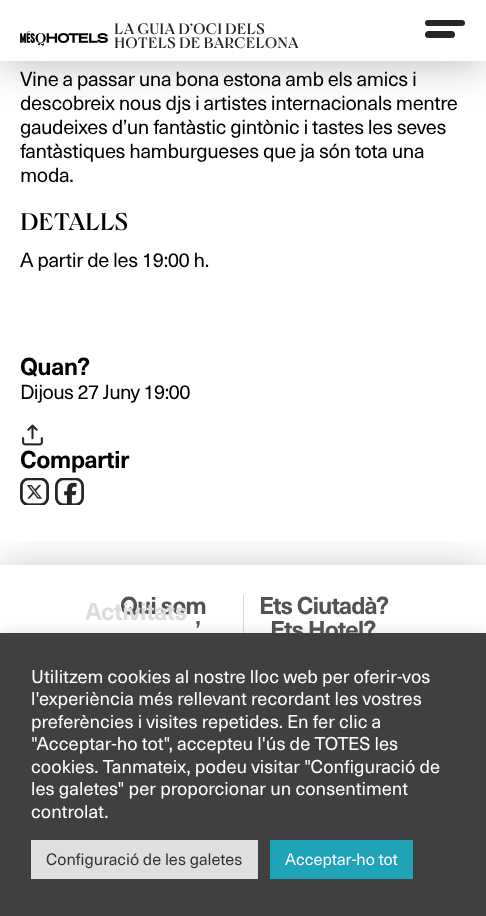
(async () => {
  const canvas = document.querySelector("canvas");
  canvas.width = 486;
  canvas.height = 916;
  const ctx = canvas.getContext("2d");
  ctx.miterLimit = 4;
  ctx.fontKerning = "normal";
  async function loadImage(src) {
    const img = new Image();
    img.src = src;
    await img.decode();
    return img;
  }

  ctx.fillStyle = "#ffffff";
  ctx.fillRect(0, 0, 486, 916);
  ctx.fillStyle = "rgba(0, 0, 0, 0.25)";
  ctx.filter = "blur(20px)";
  ctx.beginPath();
  ctx.rect(0, 4, 486, 61);
  ctx.fill();
  ctx.filter = "none";
  ctx.fillStyle = "#ffffff";
  ctx.fillRect(0, 0, 486, 61);
  ctx.drawImage(await loadImage("img/1.png"), 20, 31, 88, 15);
  ctx.fillStyle = "#252525";
  ctx.beginPath();
  ctx.roundRect(425, 20, 40, 6, 3);
  ctx.fill();
  ctx.beginPath();
  ctx.roundRect(425, 31, 30, 7, 3.5);
  ctx.fill();
  ctx.drawImage(await loadImage("img/2.png"), 22, 424, 21, 22);
  ctx.drawImage(await loadImage("img/3.png"), 20, 478, 29, 27);
  ctx.drawImage(await loadImage("img/4.png"), 55, 478, 29, 27);
  ctx.save();
  ctx.beginPath();
  ctx.rect(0, 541, 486, 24);
  ctx.clip();
  ctx.fillStyle = "rgba(0, 0, 0, 0.25)";
  ctx.filter = "blur(20px)";
  ctx.beginPath();
  ctx.rect(0, 569, 486, 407);
  ctx.fill();
  ctx.filter = "none";
  ctx.restore();
  ctx.fillStyle = "#d9d9d9";
  ctx.fillRect(243, 595, 1, 38);
  ctx.fillStyle = "rgba(172, 171, 171, 0.3)";
  ctx.filter = "blur(6px)";
  ctx.beginPath();
  ctx.rect(0, 631, 486, 284);
  ctx.fill();
  ctx.filter = "none";
  ctx.font = "15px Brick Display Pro";
  ctx.fillStyle = "#252525";
  ctx.fillText("LA GUIA D’OCI DELS", 114, 34);
  ctx.fillText("HOTELS DE BARCELONA", 114, 48);
  ctx.letterSpacing = "-0.4px";
  ctx.font = "20px 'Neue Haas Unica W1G'";
  ctx.fillStyle = "#000000";
  for (const [text, x, y] of [
    ["Vine a passar una bona estona amb els amics i", 20, 86],
    ["descobreix nous djs i artistes internacionals mentre", 20, 110],
    ["gaudeixes d’un fantàstic gintònic i tastes les seves", 20, 134],
    ["fantàstiques hamburgueses que ja són tota una", 20, 158],
    ["moda.", 20, 182],
  ]) {
    ctx.fillText(text, x, y);
  }
  ctx.font = "24px Brick Display Pro";
  ctx.fillText("DETALLS", 20, 230);
  ctx.font = "20px 'Neue Haas Unica W1G'";
  ctx.fillText("A partir de les 19:00 h.", 20, 267);
  ctx.letterSpacing = "-0.6px";
  ctx.font = "bold 24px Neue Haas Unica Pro";
  ctx.fillText("Quan?", 20, 375);
  ctx.font = "20px 'Neue Haas Unica W1G'";
  ctx.fillText("Dijous 27 Juny 19:00", 20, 399);
  ctx.font = "bold 24px Neue Haas Unica Pro";
  ctx.fillText("Compartir", 20, 468);
  ctx.letterSpacing = "-1px";
  ctx.fillStyle = "#52524e";
  for (const [text, x, y] of [
    ["Qui som", 120, 614],
    ["’", 195, 638],
    ["Ets Ciutadà?", 259, 614],
    ["Ets Hotel?", 270, 638],
  ]) {
    ctx.fillText(text, x, y);
  }
  ctx.letterSpacing = "-0.5px";
  ctx.fillStyle = "#dcdcdc";
  ctx.fillText("Activitats", 85, 620);
  ctx.fillStyle = "#404041";
  ctx.fillRect(0, 633, 486, 283);
  ctx.letterSpacing = "0px";
  ctx.font = "18.3px 'Neue Haas Unica W1G'";
  ctx.fillStyle = "#ffffff";
  for (const [text, x, y] of [
    ["Utilitzem cookies al nostre lloc web per oferir-vos", 31, 683],
    ["l'experiència més rellevant recordant les vostres", 31, 705],
    ["preferències i visites repetides. En fer clic a", 31, 728],
    ["\"Acceptar-ho tot\", accepteu l'ús de TOTES les", 31, 750],
    ["cookies. Tanmateix, podeu visitar \"Configuració de", 31, 773],
    ["les galetes\" per proporcionar un consentiment", 31, 795],
    ["controlat.", 31, 818],
  ]) {
    ctx.fillText(text, x, y);
  }
  ctx.fillStyle = "#dedfe0";
  ctx.fillRect(31, 840, 227, 39);
  ctx.font = "16.25px 'Neue Haas Unica W1G'";
  ctx.fillStyle = "#333333";
  ctx.fillText("Configuració de les galetes", 46, 865);
  ctx.fillStyle = "#1ea3b7";
  ctx.fillRect(270, 840, 143, 39);
  ctx.fillStyle = "#ffffff";
  ctx.fillText("Acceptar-ho tot", 285, 865);
})();
